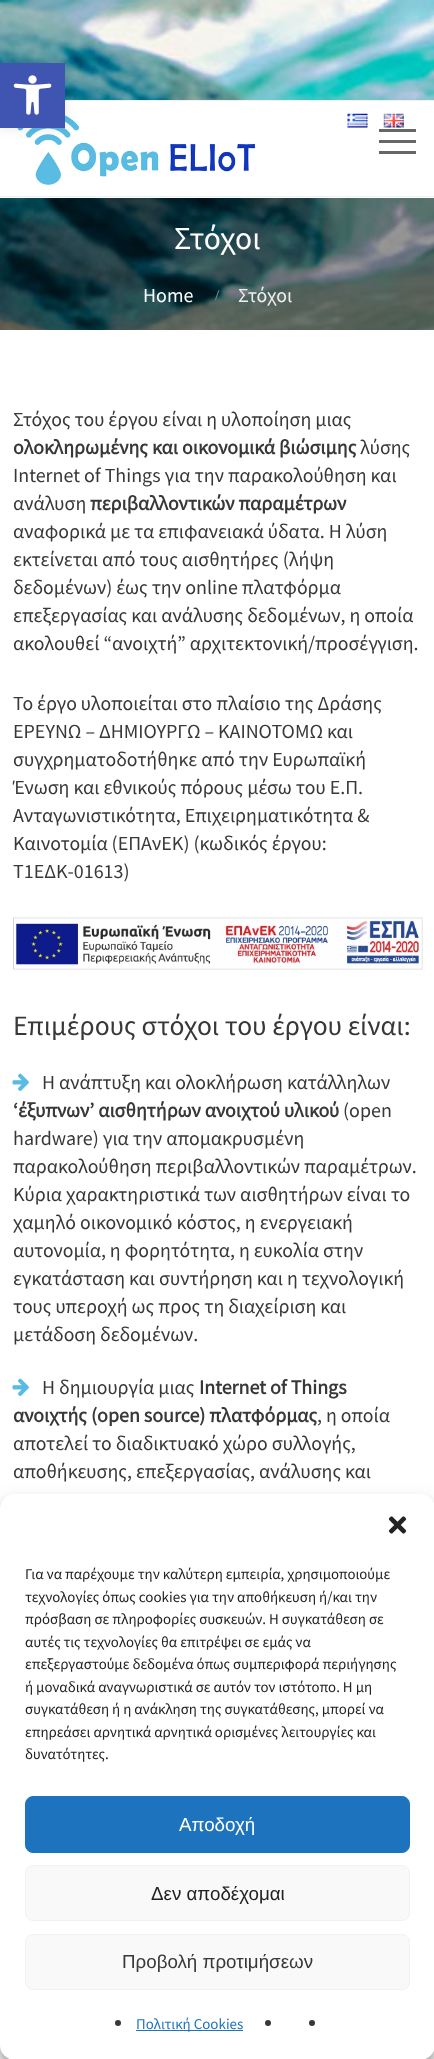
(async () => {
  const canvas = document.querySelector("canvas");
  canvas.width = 434;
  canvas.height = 2059;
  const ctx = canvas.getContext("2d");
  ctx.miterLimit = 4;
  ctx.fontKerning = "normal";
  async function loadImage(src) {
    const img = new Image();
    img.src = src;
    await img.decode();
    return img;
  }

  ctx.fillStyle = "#ffffff";
  ctx.fillRect(0, 0, 434, 2059);
  ctx.drawImage(await loadImage("img/1.png"), 0, 0, 434, 330);
  ctx.fillStyle = "#f0f0f0";
  ctx.fillRect(65, 100, 369, 1);
  ctx.fillStyle = "#ffffff";
  ctx.fillRect(0, 101, 434, 97);
  ctx.drawImage(await loadImage("img/3.png"), 17, 111, 239, 74);
  ctx.fillStyle = "rgba(0, 0, 0, 0.1)";
  ctx.filter = "blur(6px)";
  ctx.beginPath();
  ctx.rect(0, 63, 65, 65);
  ctx.fill();
  ctx.filter = "none";
  ctx.fillStyle = "#4054b2";
  ctx.fillRect(0, 63, 65, 65);
  ctx.drawImage(await loadImage("img/2.png"), 13, 75, 39, 40);
  ctx.fillStyle = "#f0f0f0";
  ctx.fillRect(0, 196, 434, 1);
  ctx.drawImage(await loadImage("img/4.png"), 347, 113, 21, 15);
  ctx.drawImage(await loadImage("img/5.png"), 383, 113, 21, 15);
  for (const [x, y, w, h, color] of [
    [379, 129, 37, 3, "#666666"],
    [379, 151, 37, 3, "#666666"],
    [379, 140, 37, 3, "#666666"],
    [0, 198, 434, 132, "rgba(0, 0, 0, 0.4)"],
  ]) {
    ctx.fillStyle = color;
    ctx.fillRect(x, y, w, h);
  }
  ctx.drawImage(await loadImage("img/6.png"), 13, 917, 410, 53);
  ctx.drawImage(await loadImage("img/7.png"), 12, 1073, 17, 18);
  ctx.drawImage(await loadImage("img/7.png"), 12, 1378, 17, 18);
  ctx.fillStyle = "rgba(0, 0, 0, 0.23)";
  ctx.filter = "blur(4px)";
  ctx.beginPath();
  ctx.roundRect(0, 1501, 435, 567, 15);
  ctx.fill();
  ctx.filter = "none";
  ctx.fillStyle = "rgba(0, 0, 0, 0.19)";
  ctx.filter = "blur(12.5px)";
  ctx.beginPath();
  ctx.roundRect(0, 1506, 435, 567, 15);
  ctx.fill();
  ctx.filter = "none";
  ctx.fillStyle = "#ffffff";
  ctx.beginPath();
  ctx.roundRect(0, 1494, 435, 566, 15);
  ctx.fill();
  ctx.drawImage(await loadImage("img/8.png"), 388, 1516, 19, 18);
  ctx.fillStyle = "#1e73be";
  ctx.beginPath();
  ctx.roundRect(25.5, 1796.5, 384, 56, 7.5);
  ctx.fill();
  ctx.strokeStyle = "#1e73be";
  ctx.stroke();
  ctx.fillStyle = "#f9f9f9";
  ctx.beginPath();
  ctx.roundRect(25.5, 1865.5, 384, 55, 7.5);
  ctx.fill();
  ctx.strokeStyle = "#f2f2f2";
  ctx.stroke();
  ctx.beginPath();
  ctx.roundRect(25.5, 1934.5, 384, 55, 7.5);
  ctx.fill();
  ctx.stroke();
  ctx.fillStyle = "#383838";
  ctx.beginPath();
  ctx.arc(118, 2023, 3, 0, Math.PI * 2);
  ctx.fill();
  ctx.fillStyle = "#1e73be";
  ctx.fillRect(136, 2030, 107, 1);
  ctx.fillStyle = "#383838";
  ctx.beginPath();
  ctx.arc(268, 2023, 3, 0, Math.PI * 2);
  ctx.fill();
  ctx.beginPath();
  ctx.arc(312, 2023, 3, 0, Math.PI * 2);
  ctx.fill();
  ctx.font = "32px Source Sans Pro";
  ctx.fillStyle = "#ffffff";
  ctx.fillText("Στόχοι", 174, 249);
  ctx.font = "20px Source Sans Pro";
  ctx.fillText("Home", 143, 302);
  ctx.font = "bold 15px Liberation Serif";
  ctx.fillStyle = "#77898c";
  ctx.fillText("/", 215, 300);
  ctx.font = "20px Source Sans Pro";
  ctx.fillStyle = "#eeeeee";
  ctx.fillText("Στόχοι", 238, 302);
  ctx.fillStyle = "#383838";
  ctx.fillText("Στόχος του έργου είναι η υλοποίηση μιας", 13, 426);
  ctx.font = "bold 20px Source Sans Pro";
  ctx.fillText("ολοκληρωμένης και οικονομικά βιώσιμης", 13, 454);
  ctx.font = "20px Source Sans Pro";
  for (const [text, x, y] of [
    ["λύσης", 360, 454],
    ["Internet of Things για την παρακολούθηση και", 13, 482],
    ["ανάλυση", 13, 510],
  ]) {
    ctx.fillText(text, x, y);
  }
  ctx.font = "bold 20px Source Sans Pro";
  ctx.fillText("περιβαλλοντικών παραμέτρων", 90, 510);
  ctx.font = "20px Source Sans Pro";
  for (const [text, x, y] of [
    ["αναφορικά με τα επιφανειακά ύδατα. Η λύση", 13, 538],
    ["εκτείνεται από τους αισθητήρες (λήψη", 13, 566],
    ["δεδομένων) έως την online πλατφόρμα", 13, 594],
    ["επεξεργασίας και ανάλυσης δεδομένων, η οποία", 13, 622],
    ["ακολουθεί “ανοιχτή” αρχιτεκτονική/προσέγγιση.", 13, 650],
    ["Το έργο υλοποιείται στο πλαίσιο της Δράσης", 13, 710],
    ["ΕΡΕΥΝΩ – ΔΗΜΙΟΥΡΓΩ – ΚΑΙΝΟΤΟΜΩ και", 13, 738],
    ["συγχρηματοδοτήθηκε από την Ευρωπαϊκή", 13, 766],
    ["Ένωση και εθνικούς πόρους μέσω του Ε.Π.", 13, 794],
    ["Ανταγωνιστικότητα, Επιχειρηματικότητα &", 13, 822],
    ["Καινοτομία (ΕΠΑνΕΚ) (κωδικός έργου:", 13, 850],
    ["Τ1ΕΔΚ-01613)", 13, 878],
  ]) {
    ctx.fillText(text, x, y);
  }
  ctx.font = "28px Source Sans Pro";
  ctx.fillText("Επιμέρους στόχοι του έργου είναι:", 13, 1035);
  ctx.font = "20px Source Sans Pro";
  ctx.fillText("Η ανάπτυξη και ολοκλήρωση κατάλληλων", 42, 1089);
  ctx.font = "bold 20px Source Sans Pro";
  ctx.fillText("‘έξυπνων’ αισθητήρων ανοιχτού υλικού", 13, 1117);
  ctx.font = "20px Source Sans Pro";
  for (const [text, x, y] of [
    ["(open", 343, 1117],
    ["hardware) για την απομακρυσμένη", 13, 1145],
    ["παρακολούθηση περιβαλλοντικών παραμέτρων.", 13, 1173],
    ["Κύρια χαρακτηριστικά των αισθητήρων είναι το", 13, 1201],
    ["χαμηλό οικονομικό κόστος, η ενεργειακή", 13, 1229],
    ["αυτονομία, η φορητότητα, η ευκολία στην", 13, 1257],
    ["εγκατάσταση και συντήρηση και η τεχνολογική", 13, 1285],
    ["τους υπεροχή ως προς τη διαχείριση και", 13, 1313],
    ["μετάδοση δεδομένων.", 13, 1341],
    ["Η δημιουργία μιας", 42, 1394],
  ]) {
    ctx.fillText(text, x, y);
  }
  ctx.font = "bold 20px Source Sans Pro";
  ctx.fillText("Internet of Things", 199, 1394);
  ctx.fillText("ανοιχτής (open source) πλατφόρμας", 13, 1422);
  ctx.font = "20px Source Sans Pro";
  for (const [text, x, y] of [
    [", η οποία", 317, 1422],
    ["αποτελεί το διαδικτυακό χώρο συλλογής,", 13, 1450],
    ["αποθήκευσης, επεξεργασίας, ανάλυσης και", 13, 1478],
  ]) {
    ctx.fillText(text, x, y);
  }
  ctx.font = "15px Source Sans Pro";
  ctx.fillStyle = "#222222";
  for (const [text, x, y] of [
    ["Για να παρέχουμε την καλύτερη εμπειρία, χρησιμοποιούμε", 25, 1579],
    ["τεχνολογίες όπως cookies για την αποθήκευση ή/και την", 25, 1602],
    ["πρόσβαση σε πληροφορίες συσκευών. Η συγκατάθεση σε", 25, 1624],
    ["αυτές τις τεχνολογίες θα επιτρέψει σε εμάς να", 25, 1647],
    ["επεξεργαστούμε δεδομένα όπως συμπεριφορά περιήγησης", 25, 1669],
    ["ή μοναδικά αναγνωριστικά σε αυτόν τον ιστότοπο. Η μη", 25, 1692],
    ["συγκατάθεση ή η ανάκληση της συγκατάθεσης, μπορεί να", 25, 1714],
    ["επηρεάσει αρνητικά αρνητικά ορισμένες λειτουργίες και", 25, 1737],
    ["δυνατότητες.", 25, 1759],
  ]) {
    ctx.fillText(text, x, y);
  }
  ctx.font = "18.75px Liberation Sans";
  ctx.fillStyle = "#ffffff";
  ctx.fillText("Αποδοχή", 179, 1831);
  ctx.fillStyle = "#222222";
  ctx.fillText("Δεν αποδέχομαι", 151, 1900);
  ctx.fillStyle = "#383838";
  ctx.fillText("Προβολή προτιμήσεων", 122, 1968);
  ctx.font = "15px Source Sans Pro";
  ctx.fillStyle = "#1e73be";
  ctx.fillText("Πολιτική Cookies", 136, 2029);
})();
